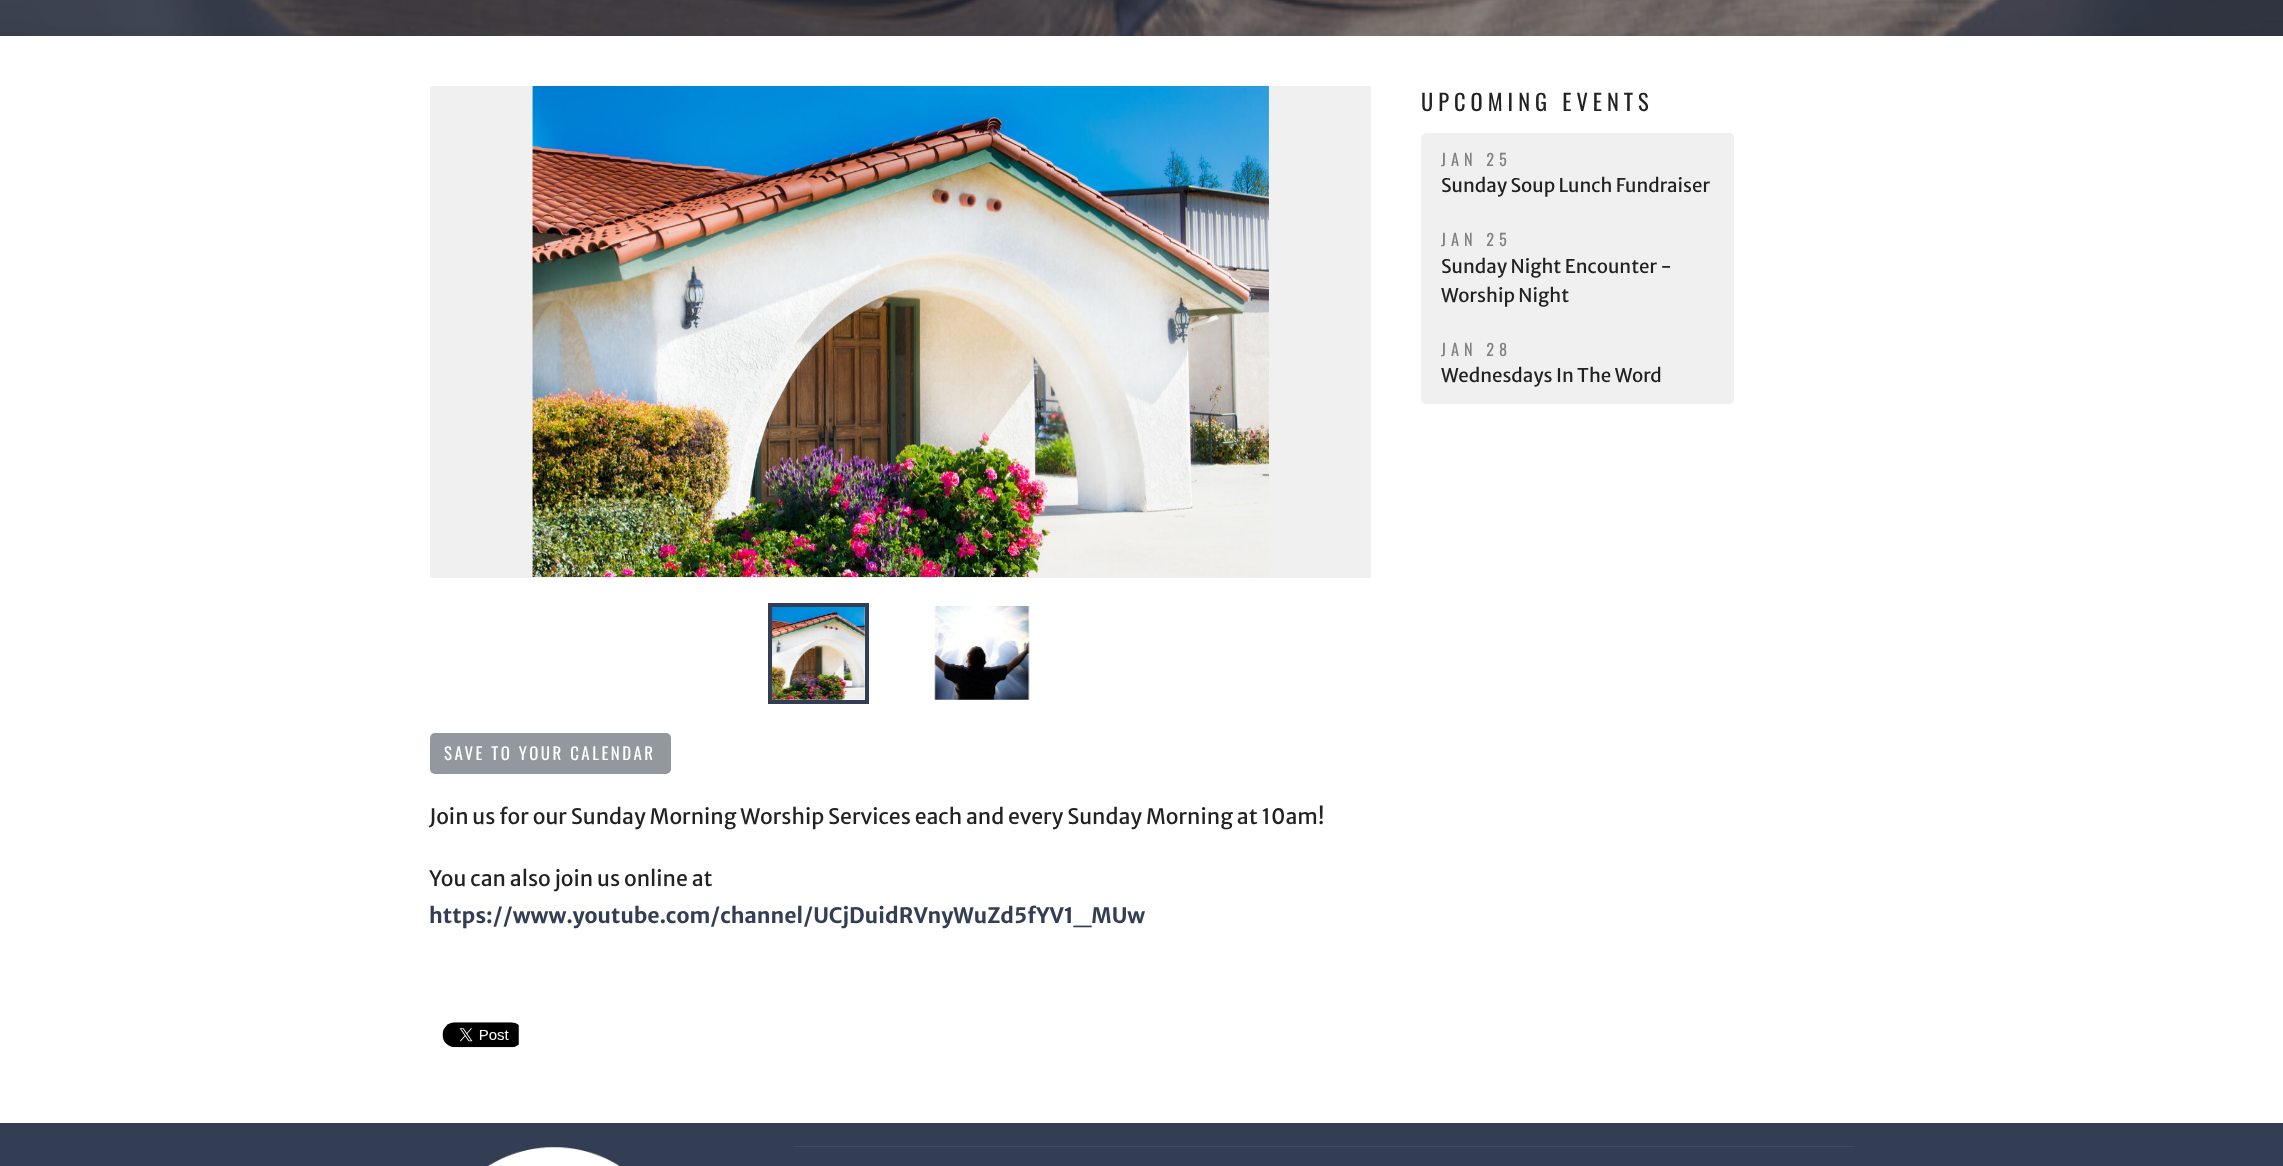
(async () => {
  const canvas = document.querySelector("canvas");
  canvas.width = 2283;
  canvas.height = 1166;
  const ctx = canvas.getContext("2d");
  ctx.miterLimit = 4;
  ctx.fontKerning = "normal";
  async function loadImage(src) {
    const img = new Image();
    img.src = src;
    await img.decode();
    return img;
  }

  ctx.fillStyle = "#ffffff";
  ctx.fillRect(0, 0, 2283, 1166);
  ctx.drawImage(await loadImage("img/1.png"), 0, 0, 2283, 36);
  ctx.fillStyle = "#f0f0f0";
  ctx.beginPath();
  ctx.roundRect(1421, 133, 313, 81, [5, 5, 0, 0]);
  ctx.fill();
  ctx.fillRect(1421, 214, 313, 109);
  ctx.beginPath();
  ctx.roundRect(1421, 323, 313, 81, [0, 0, 5, 5]);
  ctx.fill();
  ctx.fillRect(430, 86, 941, 492);
  ctx.drawImage(await loadImage("img/2.png"), 532, 86, 737, 491);
  ctx.drawImage(await loadImage("img/3.png"), 772, 607, 93, 93);
  ctx.strokeStyle = "#333e54";
  ctx.lineWidth = 4;
  ctx.strokeRect(770, 605, 97, 97);
  ctx.drawImage(await loadImage("img/4.png"), 934, 606, 96, 94);
  ctx.fillStyle = "#93979e";
  ctx.beginPath();
  ctx.roundRect(430, 733, 241, 41, 5);
  ctx.fill();
  ctx.drawImage(await loadImage("img/5.png"), 442, 1022, 77, 26);
  ctx.fillStyle = "#333e54";
  ctx.fillRect(0, 1123, 2283, 43);
  ctx.fillStyle = "#3f4c67";
  ctx.fillRect(793, 1146, 1062, 1);
  ctx.drawImage(await loadImage("img/6.png"), 487, 1147, 133, 19);
  ctx.letterSpacing = "5px";
  ctx.font = "22.5px Oswald";
  ctx.fillStyle = "#222222";
  ctx.fillText("UPCOMING EVENTS", 1421, 111);
  ctx.font = "16.25px Oswald";
  ctx.fillStyle = "#808080";
  ctx.fillText("JAN 25", 1441, 166);
  ctx.letterSpacing = "0px";
  ctx.font = "18.75px Merriweather Sans";
  ctx.fillStyle = "#222222";
  ctx.fillText("Sunday Soup Lunch Fundraiser", 1441, 192);
  ctx.letterSpacing = "5px";
  ctx.font = "16.25px Oswald";
  ctx.fillStyle = "#808080";
  ctx.fillText("JAN 25", 1441, 246);
  ctx.letterSpacing = "0px";
  ctx.font = "18.75px Merriweather Sans";
  ctx.fillStyle = "#222222";
  ctx.fillText("Sunday Night Encounter -", 1441, 273);
  ctx.fillText("Worship Night", 1441, 302);
  ctx.letterSpacing = "5px";
  ctx.font = "16.25px Oswald";
  ctx.fillStyle = "#808080";
  ctx.fillText("JAN 28", 1441, 356);
  ctx.letterSpacing = "0px";
  ctx.font = "18.75px Merriweather Sans";
  ctx.fillStyle = "#222222";
  ctx.fillText("Wednesdays In The Word", 1441, 382);
  ctx.letterSpacing = "2.5px";
  ctx.font = "16.9px Oswald";
  ctx.fillStyle = "#ffffff";
  ctx.fillText("SAVE TO YOUR CALENDAR", 444, 760);
  ctx.letterSpacing = "0px";
  ctx.font = "21.25px Merriweather Sans";
  ctx.fillStyle = "#222222";
  ctx.fillText("Join us for our Sunday Morning Worship Services each and every Sunday Morning at 10am!", 429, 824);
  ctx.fillText("You can also join us online at", 429, 886);
  ctx.font = "bold 21.25px Merriweather Sans";
  ctx.fillStyle = "#333e54";
  ctx.fillText("https://www.youtube.com/channel/UCjDuidRVnyWuZd5fYV1_MUw", 429, 923);
})();
